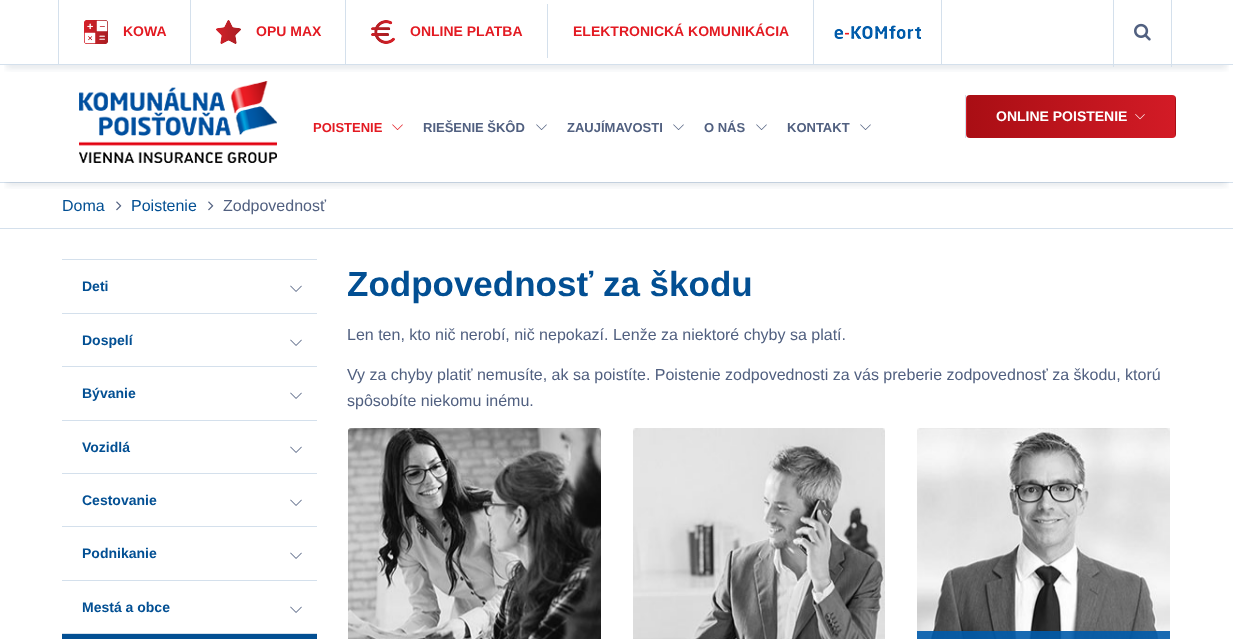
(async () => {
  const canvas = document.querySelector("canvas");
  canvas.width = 1233;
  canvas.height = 639;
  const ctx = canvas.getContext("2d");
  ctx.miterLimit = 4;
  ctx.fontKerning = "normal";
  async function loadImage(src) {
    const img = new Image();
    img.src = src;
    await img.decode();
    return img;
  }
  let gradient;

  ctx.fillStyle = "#ffffff";
  ctx.fillRect(0, 0, 1233, 639);
  ctx.save();
  ctx.beginPath();
  ctx.rect(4, 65, 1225, 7);
  ctx.clip();
  ctx.fillStyle = "rgba(16, 49, 80, 0.1)";
  ctx.filter = "blur(3px)";
  ctx.beginPath();
  ctx.rect(6, 16, 1221, 53);
  ctx.fill();
  ctx.filter = "none";
  ctx.restore();
  ctx.fillStyle = "#d4e0ec";
  ctx.fillRect(0, 64, 1233, 1);
  ctx.fillRect(58, 0, 1, 64);
  ctx.drawImage(await loadImage("img/1.png"), 84, 20, 24, 24);
  ctx.fillRect(190, 0, 1, 64);
  ctx.drawImage(await loadImage("img/2.png"), 216, 20, 25, 24);
  ctx.fillRect(345, 0, 1, 64);
  ctx.drawImage(await loadImage("img/3.png"), 371, 20, 24, 24);
  for (const [x, y, w, h, color] of [
    [547, 4, 1, 54, "#d4e0ec"],
    [941, 0, 1, 64, "#d4e0ec"],
    [813, 0, 1, 64, "#d4e0ec"],
  ]) {
    ctx.fillStyle = color;
    ctx.fillRect(x, y, w, h);
  }
  ctx.drawImage(await loadImage("img/4.png"), 834, 25, 87, 14);
  ctx.fillRect(1171, 0, 1, 67);
  ctx.fillRect(1113, 0, 1, 67);
  ctx.drawImage(await loadImage("img/5.png"), 1134, 23, 17, 18);
  ctx.fillRect(0, 182, 1233, 1);
  ctx.save();
  ctx.beginPath();
  ctx.rect(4, 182, 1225, 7);
  ctx.clip();
  ctx.fillStyle = "rgba(16, 49, 80, 0.1)";
  ctx.filter = "blur(3px)";
  ctx.beginPath();
  ctx.rect(6, 81, 1221, 105);
  ctx.fill();
  ctx.filter = "none";
  ctx.restore();
  ctx.drawImage(await loadImage("img/6.png"), 79, 81, 198, 82);
  ctx.fillRect(965, 95, 1, 43);
  ctx.save();
  ctx.beginPath();
  ctx.roundRect(966, 95, 210, 43, 4);
  ctx.clip();
  gradient = ctx.createLinearGradient(759, 117, 967, 117);
  gradient.addColorStop(0, "#a90e14");
  gradient.addColorStop(1, "#d31b26");
  ctx.fillStyle = gradient;
  ctx.fillRect(966, 95, 1, 43);
  gradient = ctx.createLinearGradient(967, 117, 1175, 117);
  gradient.addColorStop(0, "#a90e14");
  gradient.addColorStop(1, "#d31b26");
  ctx.fillStyle = gradient;
  ctx.fillRect(967, 95, 208, 43);
  gradient = ctx.createLinearGradient(1175, 117, 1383, 117);
  gradient.addColorStop(0, "#a90e14");
  gradient.addColorStop(1, "#d31b26");
  ctx.fillStyle = gradient;
  ctx.fillRect(1175, 95, 1, 43);
  ctx.restore();
  ctx.drawImage(await loadImage("img/7.png"), 1135, 114, 10, 6);
  ctx.drawImage(await loadImage("img/8.png"), 392, 124, 11, 6);
  ctx.drawImage(await loadImage("img/9.png"), 536, 124, 11, 6);
  ctx.drawImage(await loadImage("img/9.png"), 673, 124, 11, 6);
  ctx.drawImage(await loadImage("img/9.png"), 756, 124, 11, 6);
  ctx.drawImage(await loadImage("img/9.png"), 860, 124, 11, 6);
  ctx.fillRect(0, 228, 1233, 1);
  ctx.drawImage(await loadImage("img/10.png"), 116, 201, 6, 10);
  ctx.drawImage(await loadImage("img/10.png"), 208, 201, 6, 10);
  ctx.fillRect(62, 259, 255, 1);
  ctx.drawImage(await loadImage("img/11.png"), 290, 285, 12, 7);
  ctx.fillRect(62, 313, 255, 1);
  ctx.drawImage(await loadImage("img/11.png"), 290, 339, 12, 7);
  ctx.fillRect(62, 366, 255, 1);
  ctx.drawImage(await loadImage("img/11.png"), 290, 392, 12, 7);
  ctx.fillRect(62, 420, 255, 1);
  ctx.drawImage(await loadImage("img/11.png"), 290, 446, 12, 7);
  ctx.fillRect(62, 473, 255, 1);
  ctx.drawImage(await loadImage("img/11.png"), 290, 499, 12, 7);
  ctx.fillRect(62, 526, 255, 1);
  ctx.drawImage(await loadImage("img/11.png"), 290, 552, 12, 7);
  ctx.fillRect(62, 580, 255, 1);
  ctx.drawImage(await loadImage("img/11.png"), 290, 606, 12, 7);
  ctx.fillRect(62, 633, 255, 1);
  ctx.fillStyle = "#024f93";
  ctx.fillRect(62, 634, 255, 5);
  ctx.drawImage(await loadImage("img/12.png"), 348, 428, 253, 211);
  ctx.drawImage(await loadImage("img/13.png"), 633, 428, 252, 211);
  ctx.drawImage(await loadImage("img/14.png"), 917, 428, 253, 211);
  ctx.fillStyle = "rgba(0, 91, 171, 0.9)";
  ctx.fillRect(917, 631, 253, 8);
  ctx.font = "bold 14px Liberation Sans";
  ctx.fillStyle = "#e31a22";
  for (const [text, x, y] of [
    ["KOWA", 123, 36],
    ["OPU MAX", 256, 36],
    ["ONLINE PLATBA", 410, 36],
    ["ELEKTRONICKÁ KOMUNIKÁCIA", 573, 36],
  ]) {
    ctx.fillText(text, x, y);
  }
  ctx.fillStyle = "#ffffff";
  ctx.fillText("ONLINE POISTENIE", 996, 121);
  ctx.font = "bold 13px Liberation Sans";
  ctx.fillStyle = "#e31a22";
  ctx.fillText("POISTENIE", 313, 132);
  ctx.fillStyle = "#516080";
  for (const [text, x, y] of [
    ["RIEŠENIE ŠKÔD", 423, 132],
    ["ZAUJÍMAVOSTI", 567, 132],
    ["O NÁS", 704, 132],
    ["KONTAKT", 787, 132],
  ]) {
    ctx.fillText(text, x, y);
  }
  ctx.font = "16px Liberation Sans";
  ctx.fillStyle = "#024f93";
  ctx.fillText("Doma", 62, 211);
  ctx.fillText("Poistenie", 131, 211);
  ctx.fillStyle = "#516080";
  ctx.fillText("Zodpovednosť", 223, 211);
  ctx.font = "bold 14px Liberation Sans";
  ctx.fillStyle = "#024f93";
  for (const [text, x, y] of [
    ["Deti", 82, 291],
    ["Dospelí", 82, 345],
    ["Bývanie", 82, 398],
    ["Vozidlá", 82, 452],
    ["Cestovanie", 82, 505],
    ["Podnikanie", 82, 558],
    ["Mestá a obce", 82, 612],
  ]) {
    ctx.fillText(text, x, y);
  }
  ctx.font = "bold 35px Liberation Sans";
  ctx.fillText("Zodpovednosť za škodu", 347, 296);
  ctx.font = "16px Liberation Sans";
  ctx.fillStyle = "#516080";
  for (const [text, x, y] of [
    ["Len ten, kto nič nerobí, nič nepokazí. Lenže za niektoré chyby sa platí.", 347, 340],
    ["Vy za chyby platiť nemusíte, ak sa poistíte. Poistenie zodpovednosti za vás preberie zodpovednosť za škodu, ktorú", 347, 380],
    ["spôsobíte niekomu inému.", 347, 406],
  ]) {
    ctx.fillText(text, x, y);
  }
})();
